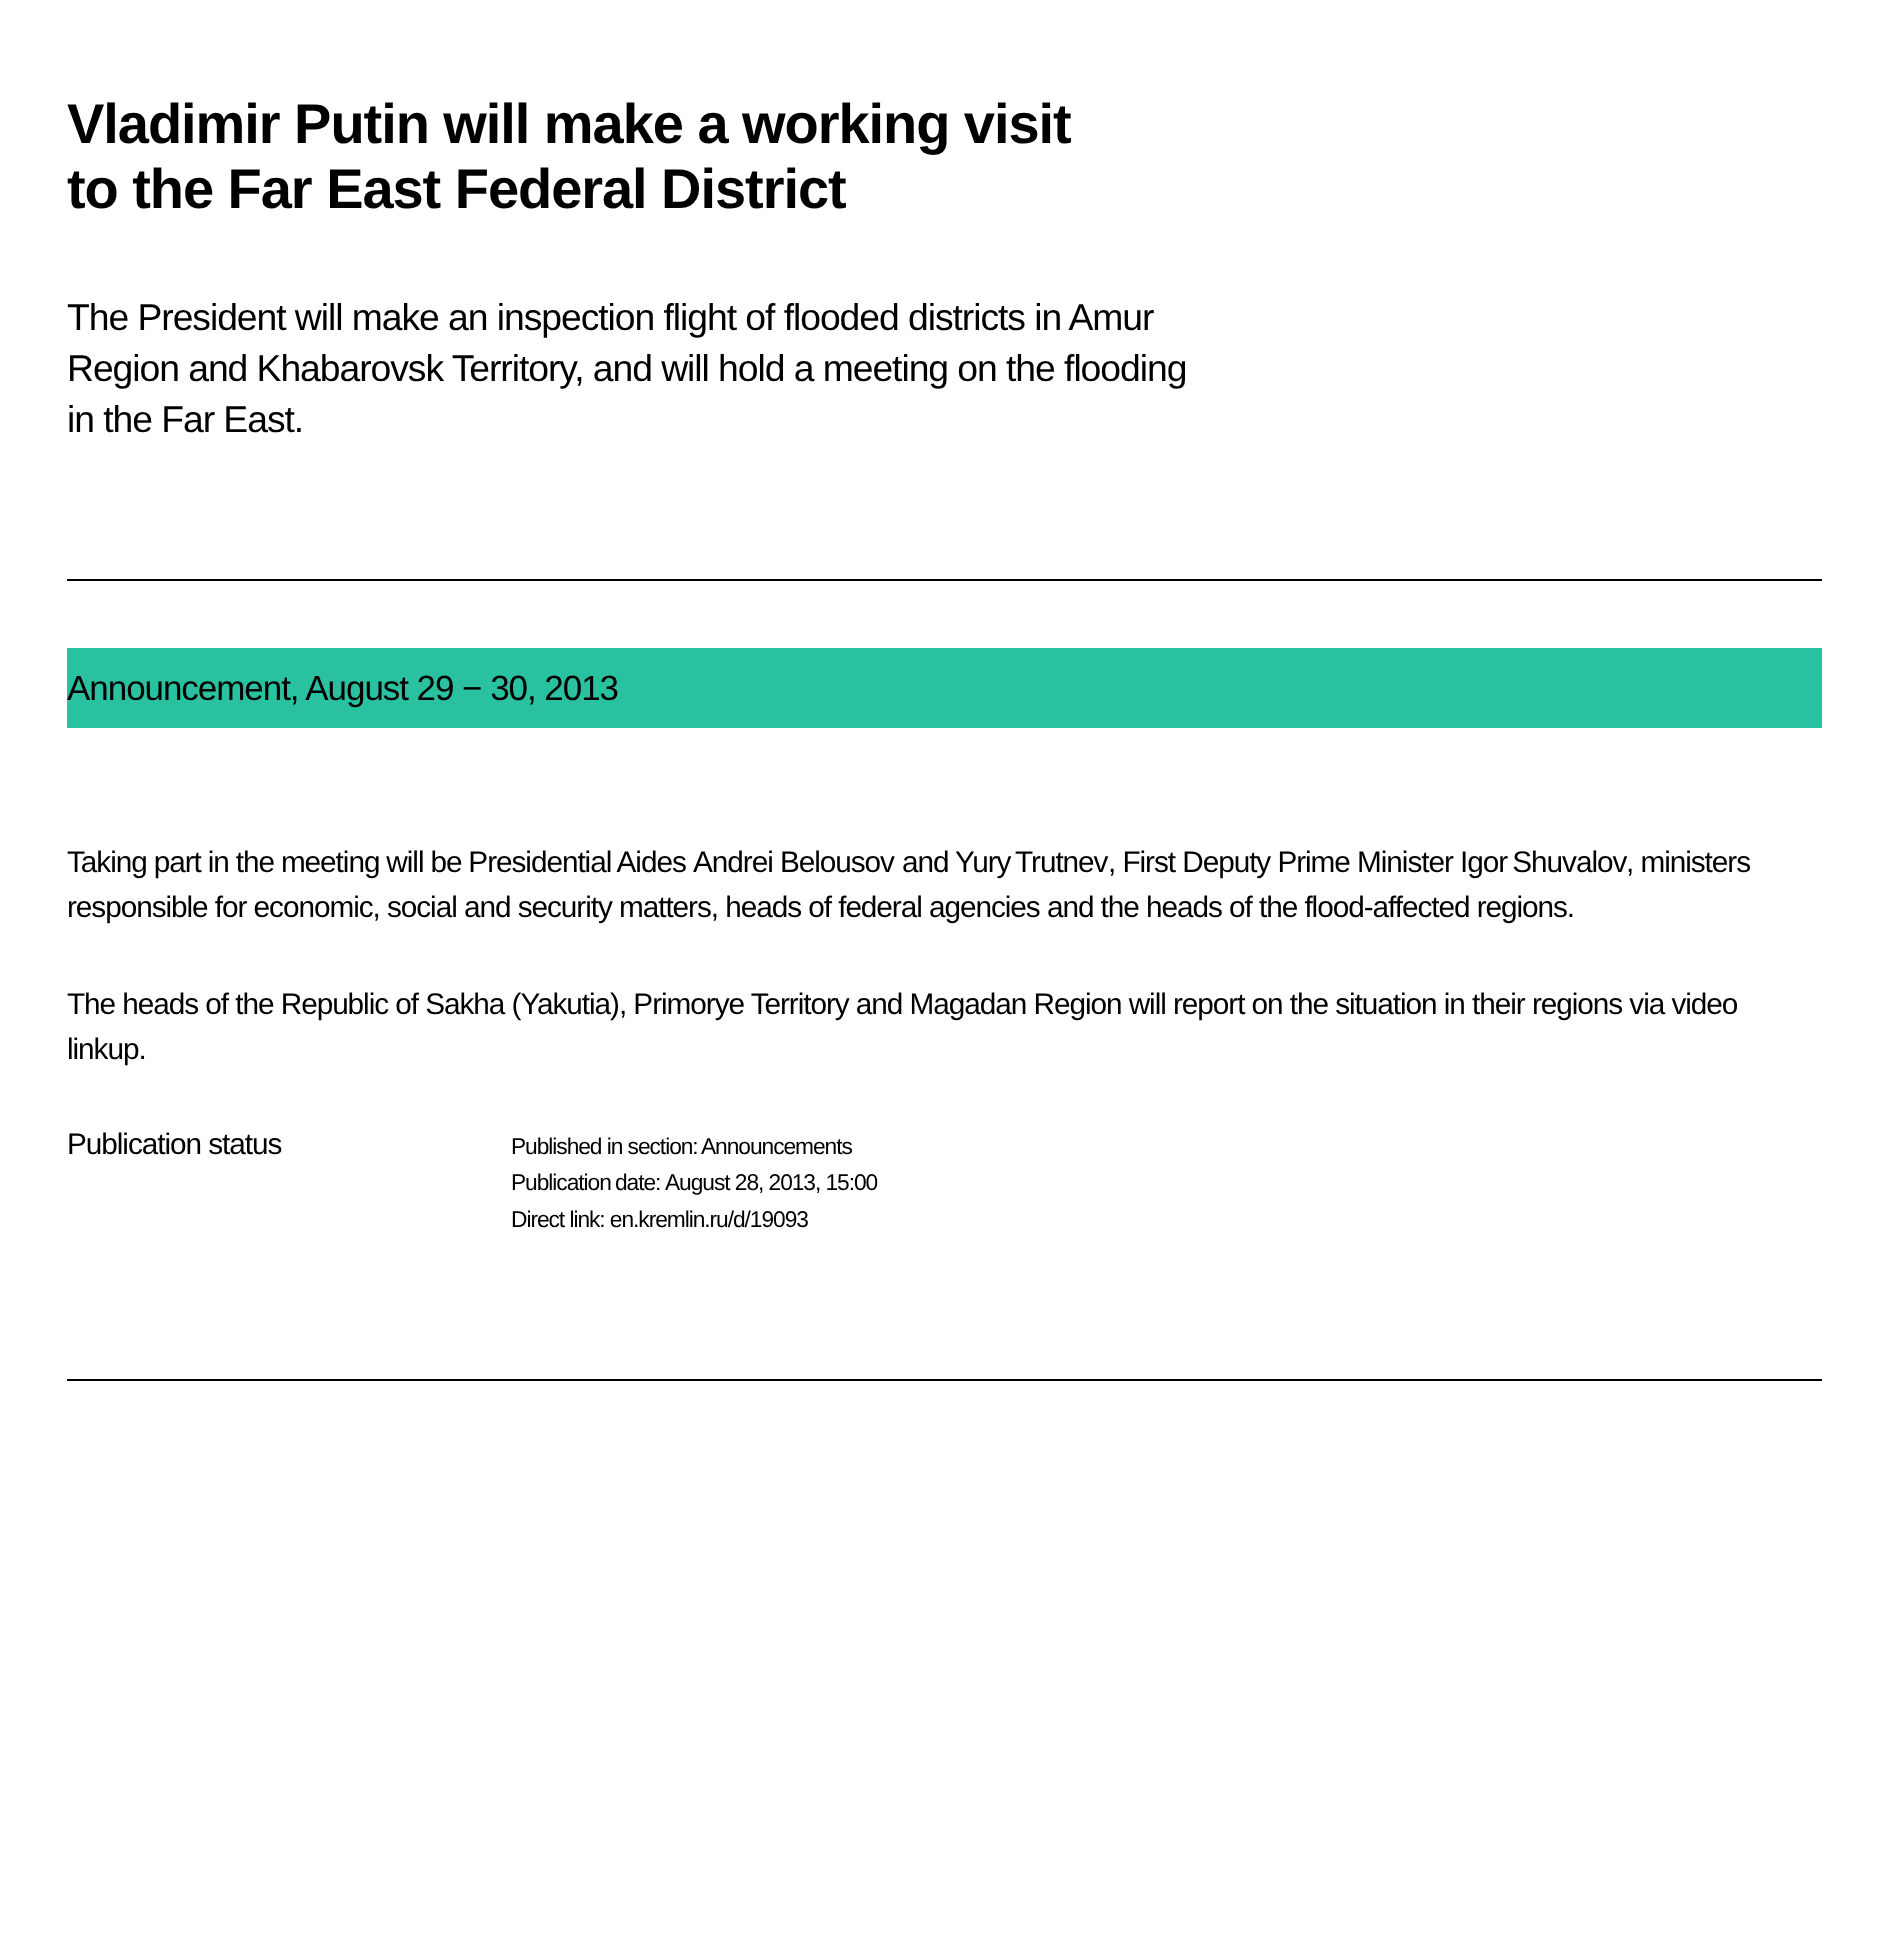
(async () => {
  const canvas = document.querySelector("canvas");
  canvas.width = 1887;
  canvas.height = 1954;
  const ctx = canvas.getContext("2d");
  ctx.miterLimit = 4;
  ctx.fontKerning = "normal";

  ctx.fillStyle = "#ffffff";
  ctx.fillRect(0, 0, 1887, 1954);
  for (const [x, y, w, h, color] of [
    [67, 1379, 1755, 2, "#000000"],
    [67, 579, 1755, 2, "#000000"],
    [67, 648, 1755, 80, "#2ac1a0"],
  ]) {
    ctx.fillStyle = color;
    ctx.fillRect(x, y, w, h);
  }
  ctx.letterSpacing = "-1.05px";
  ctx.font = "bold 56px Liberation Sans";
  ctx.fillStyle = "#000000";
  ctx.fillText("Vladimir Putin will make a working visit", 67, 143);
  ctx.fillText("to the Far East Federal District", 67, 208);
  ctx.font = "37.3px Liberation Sans";
  for (const [text, x, y] of [
    ["The President will make an inspection flight of flooded districts in Amur", 67, 330],
    ["Region and Khabarovsk Territory, and will hold a meeting on the flooding", 67, 381],
    ["in the Far East.", 67, 432],
  ]) {
    ctx.fillText(text, x, y);
  }
  ctx.font = "35px Liberation Sans";
  ctx.fillText("Announcement, August 29 − 30, 2013", 67, 700);
  ctx.wordSpacing = "-0.25px";
  ctx.font = "29.75px Liberation Sans";
  ctx.fillText("Taking part in the meeting will be Presidential Aides", 67, 872);
  ctx.wordSpacing = "0px";
  ctx.fillText("Andrei Belousov", 693, 872);
  ctx.fillText("and", 902, 872);
  ctx.wordSpacing = "-2px";
  ctx.fillText("Yury Trutnev", 955, 872);
  ctx.wordSpacing = "0px";
  ctx.fillText(", First Deputy Prime Minister", 1108, 872);
  ctx.wordSpacing = "-2px";
  ctx.fillText("Igor Shuvalov", 1460, 872);
  ctx.wordSpacing = "0px";
  for (const [text, x, y] of [
    [", ministers", 1626, 872],
    ["responsible for economic, social and security matters, heads of federal agencies and the heads of the flood-affected regions.", 67, 917],
    ["The heads of the Republic of Sakha (Yakutia), Primorye Territory and Magadan Region will report on the situation in their regions via video", 67, 1014],
    ["linkup.", 67, 1059],
    ["Publication status", 67, 1154],
  ]) {
    ctx.fillText(text, x, y);
  }
  ctx.font = "22.75px Liberation Sans";
  ctx.fillText("Published in section:", 511, 1154);
  ctx.fillText("Announcements", 701, 1154);
  ctx.wordSpacing = "-1px";
  ctx.fillText("Publication date:", 511, 1190);
  ctx.wordSpacing = "0px";
  ctx.fillText("August 28, 2013, 15:00", 665, 1190);
  ctx.fillText("Direct link: en.kremlin.ru/d/19093", 511, 1227);
})();
